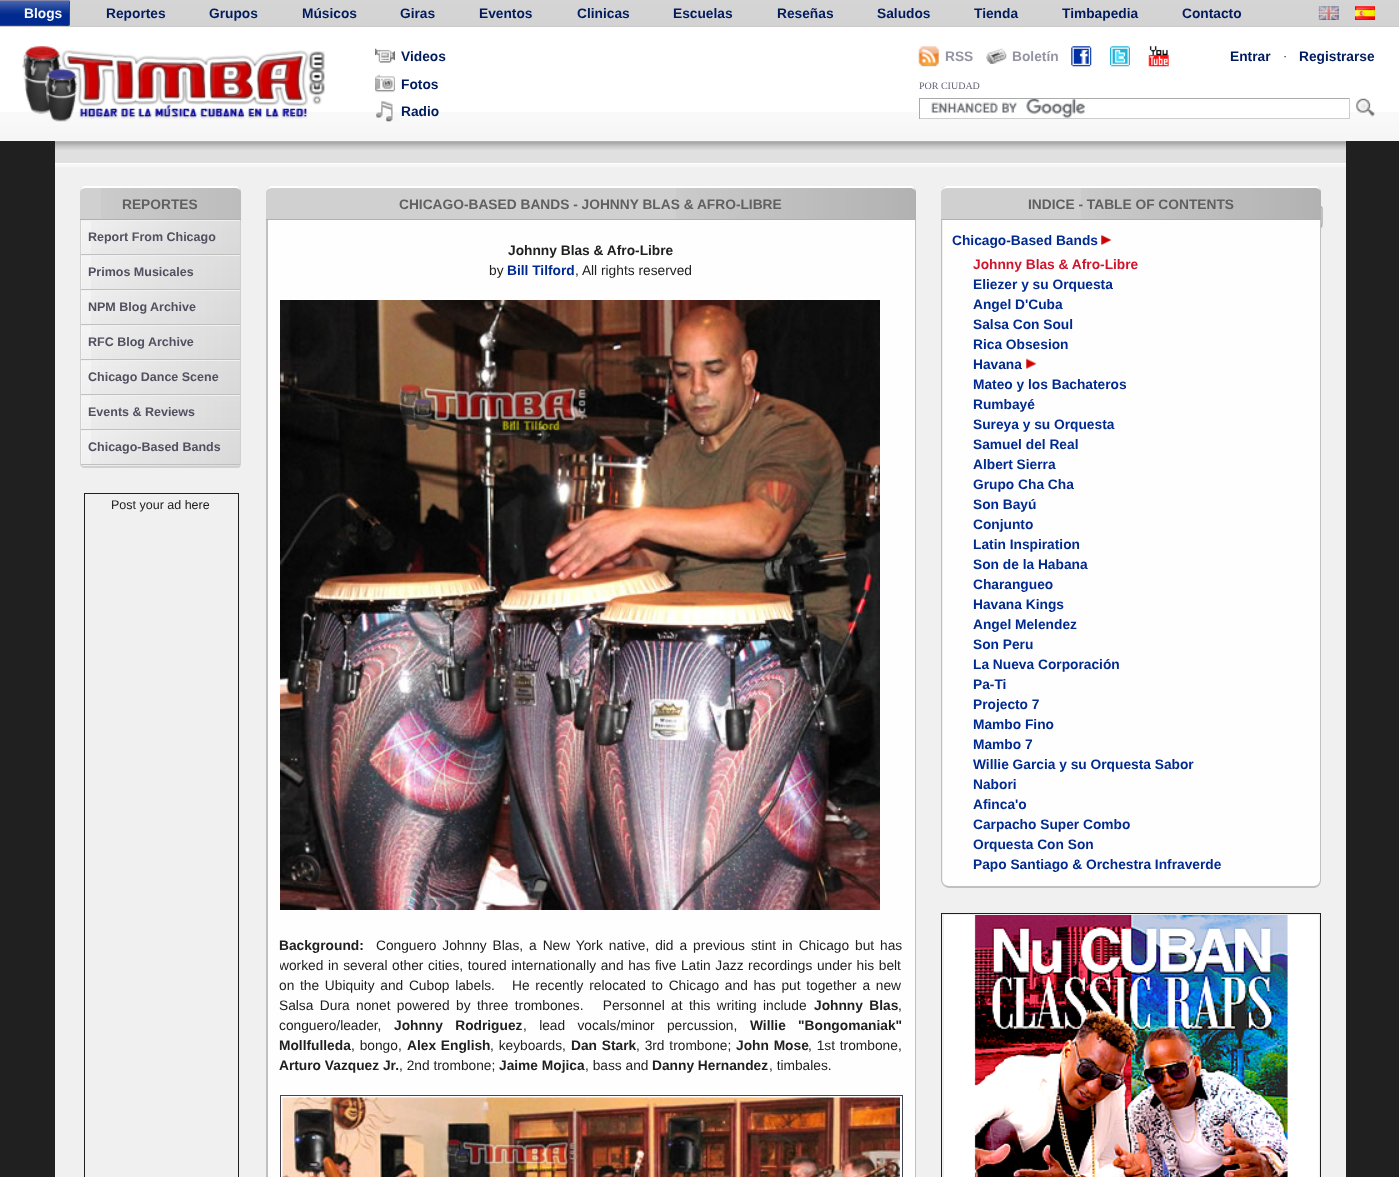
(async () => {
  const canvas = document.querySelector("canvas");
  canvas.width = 1399;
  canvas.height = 1177;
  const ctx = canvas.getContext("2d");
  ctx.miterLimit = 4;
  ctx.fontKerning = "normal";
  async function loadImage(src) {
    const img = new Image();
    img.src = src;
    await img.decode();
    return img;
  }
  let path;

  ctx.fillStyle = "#202020";
  ctx.fillRect(0, 0, 1399, 1177);
  ctx.fillStyle = "#e8e8e8";
  ctx.fillRect(67, 0, 1332, 26);
  ctx.fillStyle = "#d0d0d0";
  ctx.fillRect(0, 26, 1399, 1);
  ctx.drawImage(await loadImage("img/1.png"), 0, 0, 1399, 27);
  ctx.fillStyle = "#002a8f";
  ctx.beginPath();
  ctx.roundRect(0, 0, 70, 26, [0, 2.5, 2.5, 0]);
  ctx.fill();
  ctx.drawImage(await loadImage("img/2.png"), 0, 0, 70, 14);
  ctx.fillStyle = "#8888aa";
  path = new Path2D("M0 0V1H68V2L69 1L68 0Z");
  ctx.fill(path);
  ctx.fillStyle = "#444455";
  path = new Path2D("M68.5 24.5L69 24V2L68.5 1.5L69.5 .5L70 2V24L69 25.5Z");
  ctx.fill(path);
  ctx.save();
  ctx.beginPath();
  ctx.rect(0, 0, 1261, 26);
  ctx.clip();
  path = new Path2D("M0 25V26C7 26 68 27 69 25H68Z");
  ctx.fill(path);
  ctx.restore();
  ctx.fillStyle = "#aaaaaa";
  ctx.fillRect(1319, 6, 20, 14);
  ctx.drawImage(await loadImage("img/3.png"), 1318, 6, 21, 14);
  ctx.drawImage(await loadImage("img/4.png"), 1355, 6, 20, 14);
  ctx.fillStyle = "#ffffff";
  ctx.fillRect(0, 27, 1399, 114);
  ctx.drawImage(await loadImage("img/5.png"), 0, 112, 1399, 29);
  ctx.drawImage(await loadImage("img/6.png"), 22, 46, 303, 76);
  ctx.drawImage(await loadImage("img/7.png"), 375, 48, 20, 15);
  ctx.drawImage(await loadImage("img/8.png"), 375, 74, 20, 19);
  ctx.drawImage(await loadImage("img/9.png"), 376, 101, 17, 21);
  ctx.drawImage(await loadImage("img/10.png"), 918, 46, 21, 21);
  ctx.drawImage(await loadImage("img/11.png"), 986, 48, 21, 16);
  ctx.drawImage(await loadImage("img/12.png"), 1071, 46, 21, 21);
  ctx.drawImage(await loadImage("img/13.png"), 1110, 46, 20, 21);
  ctx.drawImage(await loadImage("img/14.png"), 1148, 46, 21, 21);
  ctx.fillRect(920, 112, 429, 6);
  ctx.drawImage(await loadImage("img/15.png"), 931, 99, 154, 19);
  for (const [x, y, w, h, color] of [
    [919, 98, 431, 1, "#aaaaaa"],
    [1349, 98, 1, 21, "#cccccc"],
    [919, 118, 431, 1, "#cccccc"],
    [919, 98, 1, 21, "#aaaaaa"],
  ]) {
    ctx.fillStyle = color;
    ctx.fillRect(x, y, w, h);
  }
  ctx.drawImage(await loadImage("img/16.png"), 1356, 98, 19, 19);
  ctx.fillStyle = "#e0e0e0";
  ctx.fillRect(55, 141, 1291, 22);
  ctx.drawImage(await loadImage("img/17.png"), 55, 141, 1291, 9);
  ctx.fillStyle = "#ffffff";
  ctx.fillRect(55, 163, 1291, 1);
  ctx.fillStyle = "#f0f0f0";
  ctx.fillRect(55, 167, 1291, 1010);
  ctx.fillStyle = "#e0e0e0";
  ctx.beginPath();
  ctx.roundRect(1298, 205, 25, 24, 4);
  ctx.fill();
  ctx.drawImage(await loadImage("img/18.png"), 1321, 206, 1, 19);
  path = new Path2D("M1321 206.5C1322.5 208 1322 210 1322 211.5V217C1322 230 1323 228 1310 228H1304C1302.5 228 1300.5 228.5 1299 227");
  ctx.strokeStyle = "#aaaaaa";
  ctx.lineWidth = 1.2;
  ctx.stroke(path);
  path = new Path2D("M1299 227C1297.5 226 1298 224 1298 222.5V217C1298 204 1297 205.5 1310 205.5H1316C1317.5 205.5 1319.5 205 1321 206.5");
  ctx.strokeStyle = "#ffffff";
  ctx.stroke(path);
  ctx.fillStyle = "#f7f7f7";
  ctx.fillRect(55, 164, 1291, 3);
  ctx.fillStyle = "#d0d0d0";
  ctx.beginPath();
  ctx.roundRect(80, 186, 161, 34, [6, 6, 0, 0]);
  ctx.fill();
  ctx.drawImage(await loadImage("img/19.png"), 101, 187, 140, 32);
  ctx.fillStyle = "#ffffff";
  path = new Path2D("M86 188H235C238 188 241 190 241 192C241 190 239 187 237 186H84C82 187 80 190 80 192C80 190 83 188 86 188Z");
  ctx.fill(path);
  ctx.fillStyle = "#b0b0b0";
  ctx.fillRect(80, 219, 161, 1);
  ctx.fillStyle = "#ffffff";
  ctx.beginPath();
  ctx.roundRect(80, 220, 161, 248, [0, 0, 4, 4]);
  ctx.fill();
  ctx.drawImage(await loadImage("img/20.png"), 80, 464, 160, 4);
  ctx.fillStyle = "#d0d0d0";
  path = new Path2D("M80 220H241V464C241 466 240 468 238 468H84C82 468 80 466 80 464ZM81 220H240V464C240 465 239 466 238 466H84C82 466 81 465 81 464Z");
  ctx.fill(path, "evenodd");
  ctx.drawImage(await loadImage("img/21.png"), 81, 221, 159, 33);
  ctx.drawImage(await loadImage("img/22.png"), 91, 221, 149, 33);
  ctx.fillStyle = "#f0f0f0";
  ctx.fillRect(81, 220, 159, 1);
  ctx.fillStyle = "#c0c0c0";
  ctx.fillRect(81, 254, 159, 1);
  ctx.drawImage(await loadImage("img/21.png"), 81, 256, 159, 33);
  ctx.drawImage(await loadImage("img/22.png"), 91, 256, 149, 33);
  ctx.fillStyle = "#f0f0f0";
  ctx.fillRect(81, 255, 159, 1);
  ctx.fillStyle = "#c0c0c0";
  ctx.fillRect(81, 289, 159, 1);
  ctx.drawImage(await loadImage("img/21.png"), 81, 291, 159, 33);
  ctx.drawImage(await loadImage("img/22.png"), 91, 291, 149, 33);
  ctx.fillStyle = "#f0f0f0";
  ctx.fillRect(81, 290, 159, 1);
  ctx.fillStyle = "#c0c0c0";
  ctx.fillRect(81, 324, 159, 1);
  ctx.drawImage(await loadImage("img/21.png"), 81, 326, 159, 33);
  ctx.drawImage(await loadImage("img/22.png"), 91, 326, 149, 33);
  ctx.fillStyle = "#f0f0f0";
  ctx.fillRect(81, 325, 159, 1);
  ctx.fillStyle = "#c0c0c0";
  ctx.fillRect(81, 359, 159, 1);
  ctx.drawImage(await loadImage("img/21.png"), 81, 361, 159, 33);
  ctx.drawImage(await loadImage("img/22.png"), 91, 361, 149, 33);
  ctx.fillStyle = "#f0f0f0";
  ctx.fillRect(81, 360, 159, 1);
  ctx.fillStyle = "#c0c0c0";
  ctx.fillRect(81, 394, 159, 1);
  ctx.drawImage(await loadImage("img/21.png"), 81, 396, 159, 33);
  ctx.drawImage(await loadImage("img/22.png"), 91, 396, 149, 33);
  ctx.fillStyle = "#f0f0f0";
  ctx.fillRect(81, 395, 159, 1);
  ctx.fillStyle = "#c0c0c0";
  ctx.fillRect(81, 429, 159, 1);
  ctx.drawImage(await loadImage("img/21.png"), 81, 431, 159, 33);
  ctx.drawImage(await loadImage("img/22.png"), 91, 431, 149, 33);
  ctx.fillStyle = "#f0f0f0";
  ctx.fillRect(81, 430, 159, 1);
  ctx.fillStyle = "#c0c0c0";
  ctx.fillRect(81, 464, 159, 1);
  ctx.strokeStyle = "#202020";
  ctx.lineWidth = 1;
  ctx.strokeRect(84.5, 493.5, 154, 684);
  ctx.fillStyle = "#d0d0d0";
  ctx.beginPath();
  ctx.roundRect(266, 186, 650, 34, [6, 6, 0, 0]);
  ctx.fill();
  ctx.drawImage(await loadImage("img/23.png"), 676, 187, 240, 32);
  ctx.fillStyle = "#ffffff";
  path = new Path2D("M272 188C270 188 267 189 266 191V190C267 189 269 187 270 186H912C914 187 916 190 916 192C916 190 913 188 910 188Z");
  ctx.fill(path);
  ctx.fillStyle = "#b0b0b0";
  ctx.fillRect(266, 219, 650, 1);
  ctx.fillStyle = "#fefefe";
  ctx.fillRect(268, 220, 647, 957);
  ctx.fillStyle = "#c0c0c0";
  path = new Path2D("M266 220H916V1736C916 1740 913 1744 909 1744H274C270 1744 266 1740 266 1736ZM268 220H915V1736C915 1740 912 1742 909 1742H274C270 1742 268 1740 268 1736Z");
  ctx.fill(path, "evenodd");
  ctx.drawImage(await loadImage("img/24.png"), 280, 300, 600, 610);
  ctx.strokeStyle = "#444455";
  ctx.strokeRect(280.5, 1095.5, 622, 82);
  ctx.drawImage(await loadImage("img/25.png"), 282, 1097, 618, 80);
  ctx.fillStyle = "#d0d0d0";
  ctx.beginPath();
  ctx.roundRect(941, 186, 380, 34, [6, 6, 0, 0]);
  ctx.fill();
  ctx.drawImage(await loadImage("img/23.png"), 1081, 187, 240, 32);
  ctx.fillStyle = "#ffffff";
  path = new Path2D("M948 188C945 188 942 189 941 191V190C942 189 944 187 946 186H1317C1319 187 1321 190 1321 192C1321 190 1318 188 1315 188Z");
  ctx.fill(path);
  ctx.fillStyle = "#b0b0b0";
  ctx.fillRect(941, 219, 380, 1);
  ctx.fillStyle = "#fefefe";
  ctx.beginPath();
  ctx.roundRect(943, 220, 377, 666, [0, 0, 6, 6]);
  ctx.fill();
  ctx.fillStyle = "#c0c0c0";
  path = new Path2D("M941 220H1321V880C1321 884 1318 888 1314 888H949C945 888 941 884 941 880ZM942 220H1320V880C1320 883 1317 886 1314 886H949C945 886 942 883 942 880Z");
  ctx.fill(path, "evenodd");
  ctx.drawImage(await loadImage("img/26.png"), 1101, 235, 11, 10);
  ctx.drawImage(await loadImage("img/27.png"), 1026, 358, 11, 11);
  ctx.strokeStyle = "#202020";
  ctx.strokeRect(941.5, 913.5, 379, 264);
  ctx.drawImage(await loadImage("img/28.png"), 944, 915, 375, 262);
  ctx.font = "bold 13.75px Liberation Sans";
  ctx.fillStyle = "#f8f8f8";
  ctx.fillText("Blogs", 24, 18);
  ctx.fillStyle = "#001b5d";
  for (const [text, x, y] of [
    ["Reportes", 106, 18],
    ["Grupos", 209, 18],
    ["Músicos", 302, 18],
    ["Giras", 400, 18],
    ["Eventos", 479, 18],
    ["Clinicas", 577, 18],
    ["Escuelas", 673, 18],
    ["Reseñas", 777, 18],
    ["Saludos", 877, 18],
    ["Tienda", 974, 18],
    ["Timbapedia", 1062, 18],
    ["Contacto", 1182, 18],
    ["Videos", 401, 61],
    ["Fotos", 401, 89],
    ["Radio", 401, 116],
  ]) {
    ctx.fillText(text, x, y);
  }
  ctx.fillStyle = "#9494a4";
  ctx.fillText("RSS", 945, 61);
  ctx.fillText("Boletín", 1012, 61);
  ctx.fillStyle = "#001b5d";
  ctx.fillText("Entrar", 1230, 61);
  ctx.font = "12.5px Liberation Sans";
  ctx.fillStyle = "#202020";
  ctx.fillText("·", 1283, 60);
  ctx.font = "bold 13.75px Liberation Sans";
  ctx.fillStyle = "#001b5d";
  ctx.fillText("Registrarse", 1299, 61);
  ctx.font = "10px Liberation Serif";
  ctx.fillStyle = "#666677";
  ctx.fillText("POR CIUDAD", 919, 89);
  ctx.font = "bold 13.75px Liberation Sans";
  ctx.fillStyle = "#606060";
  ctx.fillText("REPORTES", 122, 209);
  ctx.font = "bold 12.5px Liberation Sans";
  ctx.fillStyle = "#505060";
  for (const [text, x, y] of [
    ["Report From Chicago", 88, 241],
    ["Primos Musicales", 88, 276],
    ["NPM Blog Archive", 88, 311],
    ["RFC Blog Archive", 88, 346],
    ["Chicago Dance Scene", 88, 381],
    ["Events & Reviews", 88, 416],
    ["Chicago-Based Bands", 88, 451],
  ]) {
    ctx.fillText(text, x, y);
  }
  ctx.font = "12.5px Liberation Sans";
  ctx.fillStyle = "#202020";
  ctx.fillText("Post your ad here", 111, 509);
  ctx.font = "bold 13.75px Liberation Sans";
  ctx.fillStyle = "#606060";
  ctx.fillText("CHICAGO-BASED BANDS - JOHNNY BLAS & AFRO-LIBRE", 399, 209);
  ctx.fillStyle = "#202020";
  ctx.fillText("Johnny Blas & Afro-Libre", 508, 255);
  ctx.font = "13.75px Liberation Sans";
  ctx.fillText("by", 489, 275);
  ctx.font = "bold 13.75px Liberation Sans";
  ctx.fillStyle = "#002a8f";
  ctx.fillText("Bill Tilford", 507, 275);
  ctx.font = "13.75px Liberation Sans";
  ctx.fillStyle = "#202020";
  ctx.fillText(", All rights reserved", 575, 275);
  ctx.font = "bold 13.75px Liberation Sans";
  ctx.fillText("Background:", 279, 950);
  ctx.wordSpacing = "2.1px";
  ctx.font = "13.75px Liberation Sans";
  ctx.fillText("Conguero Johnny Blas, a New York native, did a previous stint in Chicago but has", 376, 950);
  ctx.save();
  ctx.beginPath();
  ctx.rect(280, 300, 623, 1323);
  ctx.clip();
  ctx.wordSpacing = "0.75px";
  ctx.fillText("worked in several other cities, toured internationally and has five Latin Jazz recordings under his belt", 279, 970);
  ctx.restore();
  ctx.wordSpacing = "1.9px";
  ctx.fillText("on the Ubiquity and Cubop labels.   He recently relocated to Chicago and has put together a new", 279, 990);
  ctx.wordSpacing = "2.6px";
  ctx.fillText("Salsa Dura nonet powered by three trombones.   Personnel at this writing include", 279, 1010);
  ctx.font = "bold 13.75px Liberation Sans";
  ctx.fillText("Johnny Blas", 814, 1010);
  ctx.wordSpacing = "0px";
  ctx.font = "13.75px Liberation Sans";
  ctx.fillText(",", 898, 1010);
  ctx.fillText("conguero/leader,", 279, 1030);
  ctx.wordSpacing = "8.5px";
  ctx.font = "bold 13.75px Liberation Sans";
  ctx.fillText("Johnny Rodriguez", 394, 1030);
  ctx.font = "13.75px Liberation Sans";
  ctx.fillText(", lead vocals/minor percussion,", 523, 1030);
  ctx.font = "bold 13.75px Liberation Sans";
  ctx.fillText("Willie \"Bongomaniak\"", 750, 1030);
  ctx.wordSpacing = "0px";
  ctx.fillText("Mollfulleda", 279, 1050);
  ctx.wordSpacing = "1px";
  ctx.font = "13.75px Liberation Sans";
  ctx.fillText(", bongo,", 351, 1050);
  ctx.font = "bold 13.75px Liberation Sans";
  ctx.fillText("Alex English", 407, 1050);
  ctx.font = "13.75px Liberation Sans";
  ctx.fillText(", keyboards,", 490, 1050);
  ctx.font = "bold 13.75px Liberation Sans";
  ctx.fillText("Dan Stark", 571, 1050);
  ctx.font = "13.75px Liberation Sans";
  ctx.fillText(", 3rd trombone;", 636, 1050);
  ctx.font = "bold 13.75px Liberation Sans";
  ctx.fillText("John Mose", 736, 1050);
  ctx.font = "13.75px Liberation Sans";
  ctx.fillText(", 1st trombone,", 808, 1050);
  ctx.wordSpacing = "0px";
  ctx.font = "bold 13.75px Liberation Sans";
  ctx.fillText("Arturo Vazquez Jr.", 279, 1070);
  ctx.font = "13.75px Liberation Sans";
  ctx.fillText(", 2nd trombone;", 399, 1070);
  ctx.font = "bold 13.75px Liberation Sans";
  ctx.fillText("Jaime Mojica", 499, 1070);
  ctx.font = "13.75px Liberation Sans";
  ctx.fillText(", bass and", 585, 1070);
  ctx.font = "bold 13.75px Liberation Sans";
  ctx.fillText("Danny Hernandez", 652, 1070);
  ctx.font = "13.75px Liberation Sans";
  ctx.fillText(", timbales.", 769, 1070);
  ctx.font = "bold 13.75px Liberation Sans";
  ctx.fillStyle = "#606060";
  ctx.fillText("INDICE - TABLE OF CONTENTS", 1028, 209);
  ctx.fillStyle = "#002a8f";
  ctx.fillText("Chicago-Based Bands", 952, 245);
  ctx.fillStyle = "#cf142b";
  ctx.fillText("Johnny Blas & Afro-Libre", 973, 269);
  ctx.fillStyle = "#002a8f";
  for (const [text, x, y] of [
    ["Eliezer y su Orquesta", 973, 289],
    ["Angel D'Cuba", 973, 309],
    ["Salsa Con Soul", 973, 329],
    ["Rica Obsesion", 973, 349],
    ["Havana", 973, 369],
    ["Mateo y los Bachateros", 973, 389],
    ["Rumbayé", 973, 409],
    ["Sureya y su Orquesta", 973, 429],
    ["Samuel del Real", 973, 449],
    ["Albert Sierra", 973, 469],
    ["Grupo Cha Cha", 973, 489],
    ["Son Bayú", 973, 509],
    ["Conjunto", 973, 529],
    ["Latin Inspiration", 973, 549],
    ["Son de la Habana", 973, 569],
    ["Charangueo", 973, 589],
    ["Havana Kings", 973, 609],
    ["Angel Melendez", 973, 629],
    ["Son Peru", 973, 649],
    ["La Nueva Corporación", 973, 669],
    ["Pa-Ti", 973, 689],
    ["Projecto 7", 973, 709],
    ["Mambo Fino", 973, 729],
    ["Mambo 7", 973, 749],
    ["Willie Garcia y su Orquesta Sabor", 973, 769],
    ["Nabori", 973, 789],
    ["Afinca'o", 973, 809],
    ["Carpacho Super Combo", 973, 829],
    ["Orquesta Con Son", 973, 849],
    ["Papo Santiago & Orchestra Infraverde", 973, 869],
  ]) {
    ctx.fillText(text, x, y);
  }
})();
